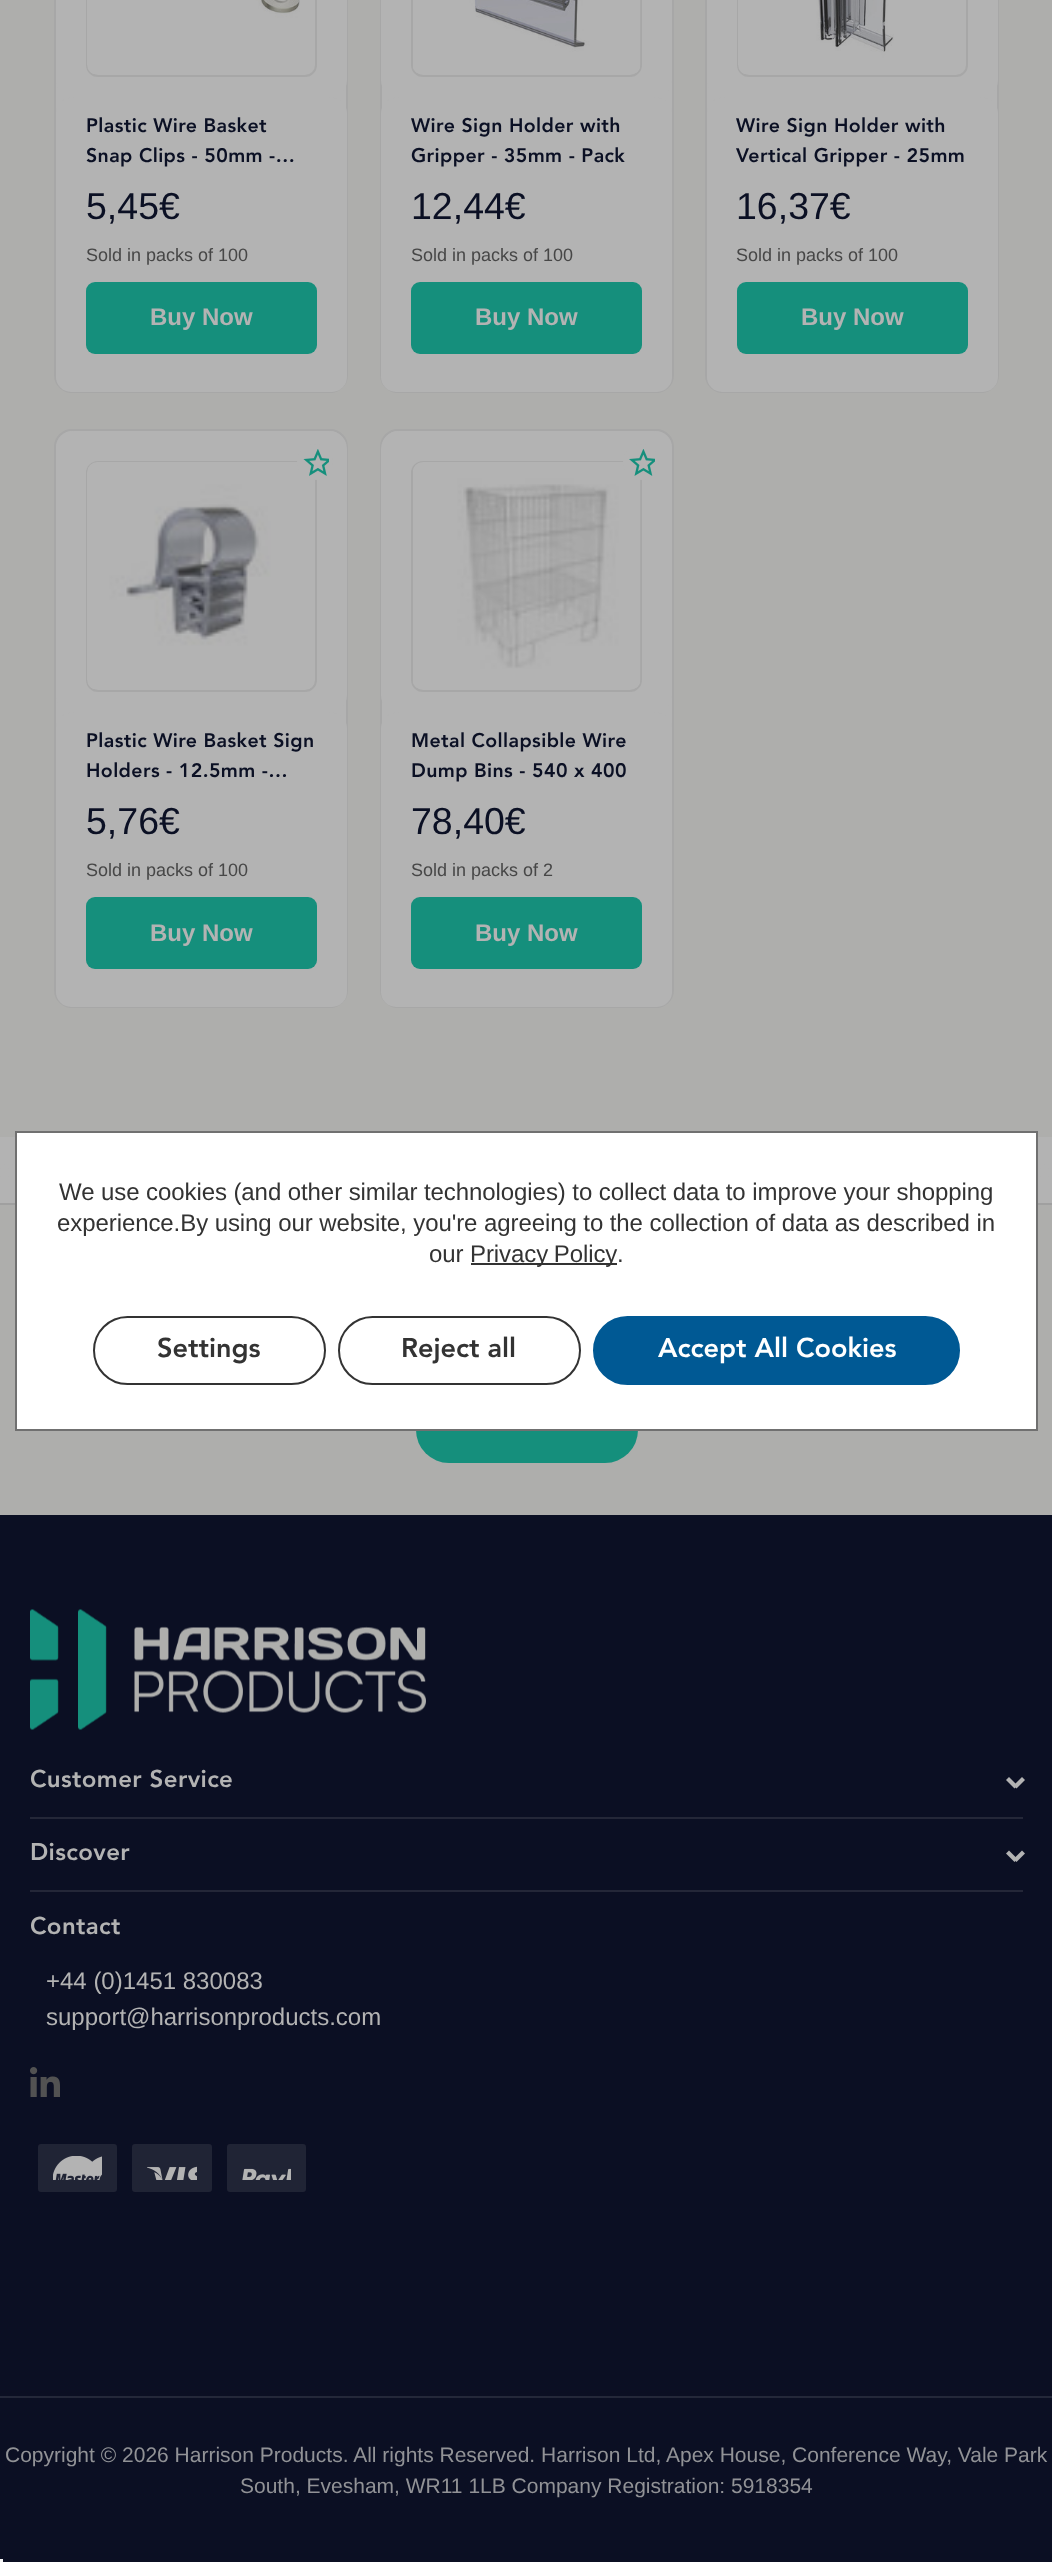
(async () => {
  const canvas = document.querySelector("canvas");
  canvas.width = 1052;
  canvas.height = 2562;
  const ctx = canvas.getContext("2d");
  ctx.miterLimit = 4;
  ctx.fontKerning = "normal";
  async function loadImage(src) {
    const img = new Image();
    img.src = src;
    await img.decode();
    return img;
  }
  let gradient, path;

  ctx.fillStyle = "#ffffff";
  ctx.fillRect(0, 0, 1052, 2562);
  gradient = ctx.createLinearGradient(526, -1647, 527, 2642);
  gradient.addColorStop(0, "#aeaeac");
  gradient.addColorStop(0.66, "#b3b3b3");
  ctx.fillStyle = gradient;
  ctx.fillRect(0, 1161, 1052, 42);
  ctx.fillStyle = "#b3b3b3";
  ctx.fillRect(0, 1137, 1052, 24);
  ctx.fillStyle = "#aeaeac";
  ctx.fillRect(0, 0, 1052, 1137);
  ctx.fillStyle = "#b3b3b3";
  ctx.beginPath();
  ctx.roundRect(55, -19, 292, 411, 17);
  ctx.fill();
  ctx.strokeStyle = "#a7a7a7";
  ctx.lineWidth = 2;
  ctx.stroke();
  ctx.beginPath();
  ctx.roundRect(56, -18, 291, 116, 18);
  ctx.fill();
  ctx.beginPath();
  ctx.roundRect(87, -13, 229, 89, 11);
  ctx.stroke();
  ctx.drawImage(await loadImage("img/1.png"), 87, 0, 213, 74);
  ctx.beginPath();
  ctx.roundRect(56, 98, 291, 294, 15);
  ctx.fill();
  ctx.fillStyle = "#158f7c";
  ctx.beginPath();
  ctx.roundRect(86, 282, 231, 72, 9);
  ctx.fill();
  ctx.fillStyle = "#b3b3b3";
  ctx.beginPath();
  ctx.roundRect(381, -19, 292, 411, 17);
  ctx.fill();
  ctx.stroke();
  ctx.beginPath();
  ctx.roundRect(381, -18, 291, 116, 18);
  ctx.fill();
  ctx.beginPath();
  ctx.roundRect(412, -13, 229, 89, 11);
  ctx.stroke();
  ctx.drawImage(await loadImage("img/2.png"), 413, 0, 228, 73);
  ctx.beginPath();
  ctx.roundRect(381, 98, 291, 294, 15);
  ctx.fill();
  ctx.fillStyle = "#158f7c";
  ctx.beginPath();
  ctx.roundRect(411, 282, 231, 72, 9);
  ctx.fill();
  ctx.fillStyle = "#b3b3b3";
  ctx.beginPath();
  ctx.roundRect(706, -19, 292, 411, 17);
  ctx.fill();
  ctx.stroke();
  ctx.beginPath();
  ctx.roundRect(707, -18, 291, 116, 18);
  ctx.fill();
  ctx.beginPath();
  ctx.roundRect(738, -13, 229, 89, 11);
  ctx.stroke();
  ctx.drawImage(await loadImage("img/3.png"), 738, 0, 156, 74);
  ctx.beginPath();
  ctx.roundRect(707, 98, 291, 294, 15);
  ctx.fill();
  ctx.fillStyle = "#158f7c";
  ctx.beginPath();
  ctx.roundRect(737, 282, 231, 72, 9);
  ctx.fill();
  ctx.fillStyle = "#b3b3b3";
  ctx.beginPath();
  ctx.roundRect(55, 430, 292, 577, 17);
  ctx.fill();
  ctx.stroke();
  ctx.beginPath();
  ctx.roundRect(56, 431, 291, 282, 18);
  ctx.fill();
  ctx.beginPath();
  ctx.roundRect(87, 462, 229, 229, 11);
  ctx.stroke();
  ctx.drawImage(await loadImage("img/4.png"), 87, 462, 227, 227);
  ctx.beginPath();
  ctx.arc(315, 462, 18, 0, Math.PI * 2);
  ctx.fill();
  ctx.drawImage(await loadImage("img/5.png"), 303, 449, 26, 27);
  ctx.beginPath();
  ctx.roundRect(56, 713, 291, 294, 15);
  ctx.fill();
  ctx.fillStyle = "#158f7c";
  ctx.beginPath();
  ctx.roundRect(86, 897, 231, 72, 9);
  ctx.fill();
  ctx.fillStyle = "#b3b3b3";
  ctx.beginPath();
  ctx.roundRect(381, 430, 292, 577, 17);
  ctx.fill();
  ctx.stroke();
  ctx.beginPath();
  ctx.roundRect(381, 431, 291, 282, 18);
  ctx.fill();
  ctx.beginPath();
  ctx.roundRect(412, 462, 229, 229, 11);
  ctx.stroke();
  ctx.drawImage(await loadImage("img/6.png"), 413, 462, 228, 226);
  ctx.beginPath();
  ctx.arc(641, 462, 18, 0, Math.PI * 2);
  ctx.fill();
  ctx.drawImage(await loadImage("img/7.png"), 629, 449, 26, 27);
  ctx.beginPath();
  ctx.roundRect(381, 713, 291, 294, 15);
  ctx.fill();
  ctx.fillStyle = "#158f7c";
  ctx.beginPath();
  ctx.roundRect(411, 897, 231, 72, 9);
  ctx.fill();
  ctx.fillStyle = "#a0a0a0";
  ctx.fillRect(0, 1203, 1052, 2);
  ctx.fillStyle = "#aeaeac";
  ctx.fillRect(0, 1205, 1052, 310);
  ctx.fillStyle = "#158f7c";
  ctx.beginPath();
  ctx.roundRect(416, 1397, 222, 66, 33);
  ctx.fill();
  ctx.fillStyle = "#ffffff";
  ctx.beginPath();
  ctx.rect(16, 1132, 1021, 298);
  ctx.fill();
  ctx.strokeStyle = "#707070";
  ctx.stroke();
  ctx.fillStyle = "#333333";
  ctx.fillRect(471, 1263, 146, 2);
  ctx.beginPath();
  ctx.roundRect(94, 1317, 231, 67, 33.5);
  ctx.strokeStyle = "#333333";
  ctx.stroke();
  ctx.beginPath();
  ctx.roundRect(339, 1317, 241, 67, 33.5);
  ctx.stroke();
  ctx.fillStyle = "#005994";
  ctx.beginPath();
  ctx.roundRect(594, 1317, 365, 67, 33.5);
  ctx.fill();
  ctx.strokeStyle = "#005994";
  ctx.stroke();
  ctx.fillStyle = "#0b0f23";
  ctx.fillRect(0, 1515, 1052, 1047);
  ctx.drawImage(await loadImage("img/8.png"), 30, 1609, 396, 121);
  ctx.fillStyle = "#242738";
  ctx.fillRect(30, 1817, 993, 2);
  ctx.fillStyle = "#b3b3b3";
  path = new Path2D("M1013.5 1785.5L1022 1777L1025 1780L1016.5 1788.5Z");
  ctx.fill(path);
  path = new Path2D("M1006 1780L1009 1777L1017.5 1785.5L1014.5 1788.5Z");
  ctx.fill(path);
  ctx.fillStyle = "#242738";
  ctx.fillRect(30, 1890, 993, 2);
  ctx.fillStyle = "#b3b3b3";
  path = new Path2D("M1013.5 1859L1022 1850.5L1025 1853.5L1016.5 1862Z");
  ctx.fill(path);
  path = new Path2D("M1006 1853.5L1009 1850.5L1017.5 1859L1014.5 1862Z");
  ctx.fill(path);
  ctx.drawImage(await loadImage("img/9.png"), 30, 2067, 30, 30);
  ctx.fillStyle = "#202435";
  ctx.beginPath();
  ctx.roundRect(38, 2144, 79, 48, 3);
  ctx.fill();
  ctx.drawImage(await loadImage("img/10.png"), 53, 2156, 49, 24);
  ctx.beginPath();
  ctx.roundRect(132, 2144, 80, 48, 3);
  ctx.fill();
  ctx.drawImage(await loadImage("img/11.png"), 147, 2166, 50, 14);
  ctx.beginPath();
  ctx.roundRect(227, 2144, 79, 48, 3);
  ctx.fill();
  ctx.drawImage(await loadImage("img/12.png"), 242, 2168, 49, 12);
  ctx.fillStyle = "#242839";
  ctx.fillRect(0, 2396, 1052, 2);
  ctx.fillStyle = "#f5f5f5";
  ctx.fillRect(0, 2559, 3, 3);
  ctx.letterSpacing = "0.4px";
  ctx.font = "900 19.5px Avenir";
  ctx.fillStyle = "#0b1024";
  ctx.fillText("Plastic Wire Basket", 86, 132);
  ctx.fillText("Snap Clips - 50mm -…", 86, 162);
  ctx.letterSpacing = "0px";
  ctx.font = "37.5px Liberation Sans";
  ctx.fillText("5,45€", 86, 219);
  ctx.font = "18px Liberation Sans";
  ctx.fillStyle = "#474747";
  ctx.fillText("Sold in packs of 100", 86, 261);
  ctx.font = "bold 24px Liberation Sans";
  ctx.fillStyle = "#b3b3b3";
  ctx.fillText("Buy Now", 150, 325);
  ctx.letterSpacing = "0.4px";
  ctx.font = "900 19.5px Avenir";
  ctx.fillStyle = "#0b1024";
  ctx.fillText("Wire Sign Holder with", 411, 132);
  ctx.fillText("Gripper - 35mm - Pack", 411, 162);
  ctx.letterSpacing = "0px";
  ctx.font = "37.5px Liberation Sans";
  ctx.fillText("12,44€", 411, 219);
  ctx.font = "18px Liberation Sans";
  ctx.fillStyle = "#474747";
  ctx.fillText("Sold in packs of 100", 411, 261);
  ctx.font = "bold 24px Liberation Sans";
  ctx.fillStyle = "#b3b3b3";
  ctx.fillText("Buy Now", 475, 325);
  ctx.letterSpacing = "0.4px";
  ctx.font = "900 19.5px Avenir";
  ctx.fillStyle = "#0b1024";
  ctx.fillText("Wire Sign Holder with", 736, 132);
  ctx.fillText("Vertical Gripper - 25mm", 736, 162);
  ctx.letterSpacing = "0px";
  ctx.font = "37.5px Liberation Sans";
  ctx.fillText("16,37€", 736, 219);
  ctx.font = "18px Liberation Sans";
  ctx.fillStyle = "#474747";
  ctx.fillText("Sold in packs of 100", 736, 261);
  ctx.font = "bold 24px Liberation Sans";
  ctx.fillStyle = "#b3b3b3";
  ctx.fillText("Buy Now", 801, 325);
  ctx.letterSpacing = "0.4px";
  ctx.font = "900 19.5px Avenir";
  ctx.fillStyle = "#0b1024";
  ctx.fillText("Plastic Wire Basket Sign", 86, 747);
  ctx.fillText("Holders - 12.5mm -…", 86, 777);
  ctx.letterSpacing = "0px";
  ctx.font = "37.5px Liberation Sans";
  ctx.fillText("5,76€", 86, 834);
  ctx.font = "18px Liberation Sans";
  ctx.fillStyle = "#474747";
  ctx.fillText("Sold in packs of 100", 86, 876);
  ctx.font = "bold 24px Liberation Sans";
  ctx.fillStyle = "#b3b3b3";
  ctx.fillText("Buy Now", 150, 941);
  ctx.letterSpacing = "0.4px";
  ctx.font = "900 19.5px Avenir";
  ctx.fillStyle = "#0b1024";
  ctx.fillText("Metal Collapsible Wire", 411, 747);
  ctx.fillText("Dump Bins - 540 x 400", 411, 777);
  ctx.letterSpacing = "0px";
  ctx.font = "37.5px Liberation Sans";
  ctx.fillText("78,40€", 411, 834);
  ctx.font = "18px Liberation Sans";
  ctx.fillStyle = "#474747";
  ctx.fillText("Sold in packs of 2", 411, 876);
  ctx.font = "bold 24px Liberation Sans";
  ctx.fillStyle = "#b3b3b3";
  ctx.fillText("Buy Now", 475, 941);
  ctx.letterSpacing = "-0.08px";
  ctx.font = "24px Liberation Sans";
  ctx.fillStyle = "#333333";
  for (const [text, x, y] of [
    ["We use cookies (and other similar technologies) to collect data to improve your shopping", 59, 1200],
    ["experience.By using our website, you're agreeing to the collection of data as described in", 57, 1231],
    ["our", 429, 1262],
  ]) {
    ctx.fillText(text, x, y);
  }
  ctx.wordSpacing = "-1px";
  ctx.fillText("Privacy Policy", 470, 1262);
  ctx.wordSpacing = "0px";
  ctx.fillText(".", 617, 1262);
  ctx.letterSpacing = "0px";
  ctx.font = "900 27px Avenir";
  ctx.fillText("Settings", 157, 1357);
  ctx.fillText("Reject all", 401, 1357);
  ctx.fillStyle = "#ffffff";
  ctx.fillText("Accept All Cookies", 658, 1357);
  ctx.letterSpacing = "0.4px";
  ctx.font = "900 24px Avenir";
  ctx.fillStyle = "#b3b3b3";
  for (const [text, x, y] of [
    ["Customer Service", 30, 1787],
    ["Discover", 30, 1860],
    ["Contact", 30, 1934],
  ]) {
    ctx.fillText(text, x, y);
  }
  ctx.letterSpacing = "0px";
  ctx.font = "24px Liberation Sans";
  ctx.fillText("+44 (0)1451 830083", 46, 1989);
  ctx.fillText("support@harrisonproducts.com", 46, 2025);
  ctx.font = "21px Liberation Sans";
  ctx.fillStyle = "#919296";
  for (const [text, x, y] of [
    ["Copyright © 2026 Harrison Products. All rights Reserved. Harrison Ltd,", 5, 2462],
    ["Apex House, Conference Way, Vale Park", 666, 2462],
    ["South, Evesham, WR11 1LB Company Registration: 5918354", 240, 2493],
  ]) {
    ctx.fillText(text, x, y);
  }
})();
